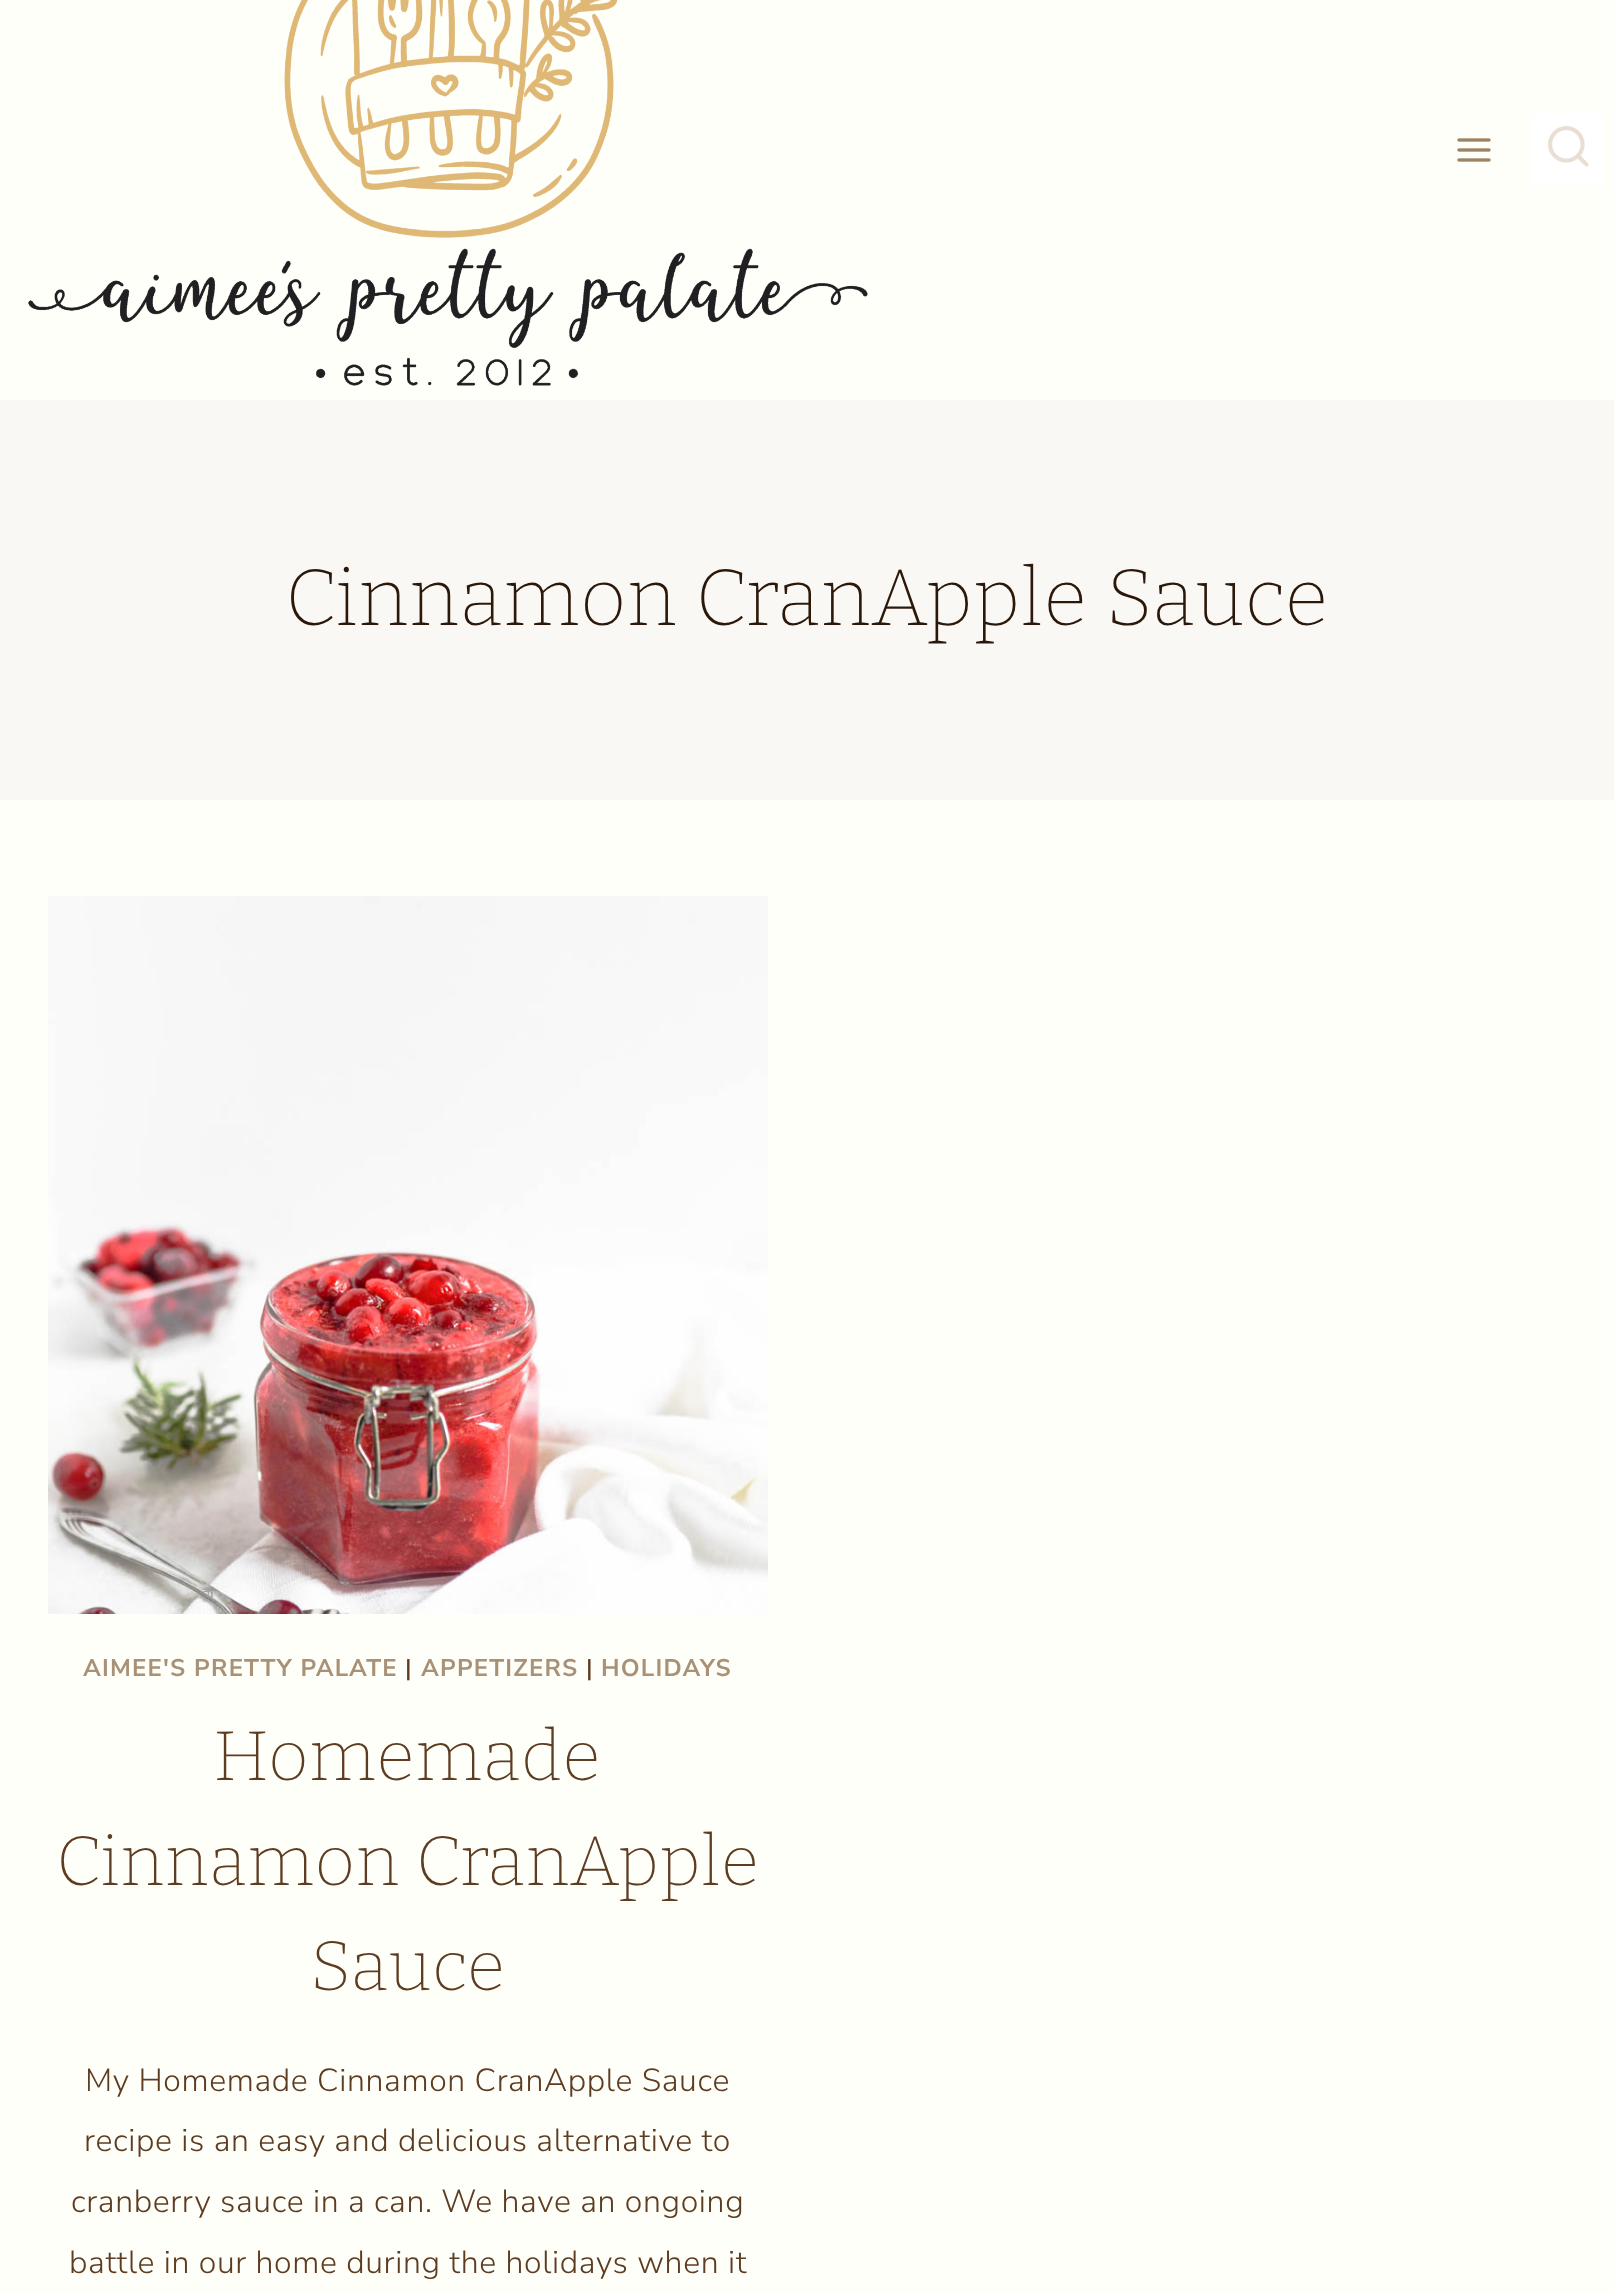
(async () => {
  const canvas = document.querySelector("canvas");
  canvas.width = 1614;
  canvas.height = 2293;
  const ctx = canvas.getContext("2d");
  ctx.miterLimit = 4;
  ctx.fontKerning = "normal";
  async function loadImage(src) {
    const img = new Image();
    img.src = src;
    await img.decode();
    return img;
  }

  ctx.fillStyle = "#fffffa";
  ctx.fillRect(0, 0, 1614, 2293);
  ctx.drawImage(await loadImage("img/1.png"), 28, 0, 840, 386);
  ctx.drawImage(await loadImage("img/2.png"), 1457, 138, 34, 24);
  ctx.fillStyle = "#ffffff";
  ctx.fillRect(1532, 114, 72, 72);
  ctx.drawImage(await loadImage("img/3.png"), 1548, 126, 41, 41);
  ctx.fillStyle = "#faf8f5";
  ctx.fillRect(0, 400, 1614, 400);
  ctx.drawImage(await loadImage("img/4.png"), 48, 896, 720, 718);
  ctx.letterSpacing = "0.65px";
  ctx.font = "200 80px Bitter";
  ctx.fillStyle = "#2c1809";
  ctx.fillText("Cinnamon CranApple Sauce", 285, 625);
  ctx.letterSpacing = "1.2px";
  ctx.font = "bold 24px Nunito Sans";
  ctx.fillStyle = "#a99176";
  ctx.fillText("AIMEE'S PRETTY PALATE", 83, 1676);
  ctx.font = "600 24px Nunito Sans";
  ctx.fillStyle = "#5e3c21";
  ctx.fillText("|", 405, 1676);
  ctx.font = "bold 24px Nunito Sans";
  ctx.fillStyle = "#a99176";
  ctx.fillText("APPETIZERS", 421, 1676);
  ctx.font = "600 24px Nunito Sans";
  ctx.fillStyle = "#5e3c21";
  ctx.fillText("|", 586, 1676);
  ctx.font = "bold 24px Nunito Sans";
  ctx.fillStyle = "#a99176";
  ctx.fillText("HOLIDAYS", 601, 1676);
  ctx.letterSpacing = "0.65px";
  ctx.font = "200 70px Bitter";
  ctx.fillStyle = "#5e3c21";
  for (const [text, x, y] of [
    ["Homemade", 213, 1780],
    ["Cinnamon CranApple", 56, 1885],
    ["Sauce", 310, 1990],
  ]) {
    ctx.fillText(text, x, y);
  }
  ctx.font = "300 32px Nunito Sans";
  for (const [text, x, y] of [
    ["My Homemade Cinnamon CranApple Sauce", 85, 2091],
    ["recipe is an easy and delicious alternative to", 84, 2151],
    ["cranberry sauce in a can. We have an ongoing", 71, 2212],
    ["battle in our home during the holidays when it", 69, 2273],
  ]) {
    ctx.fillText(text, x, y);
  }
})();
